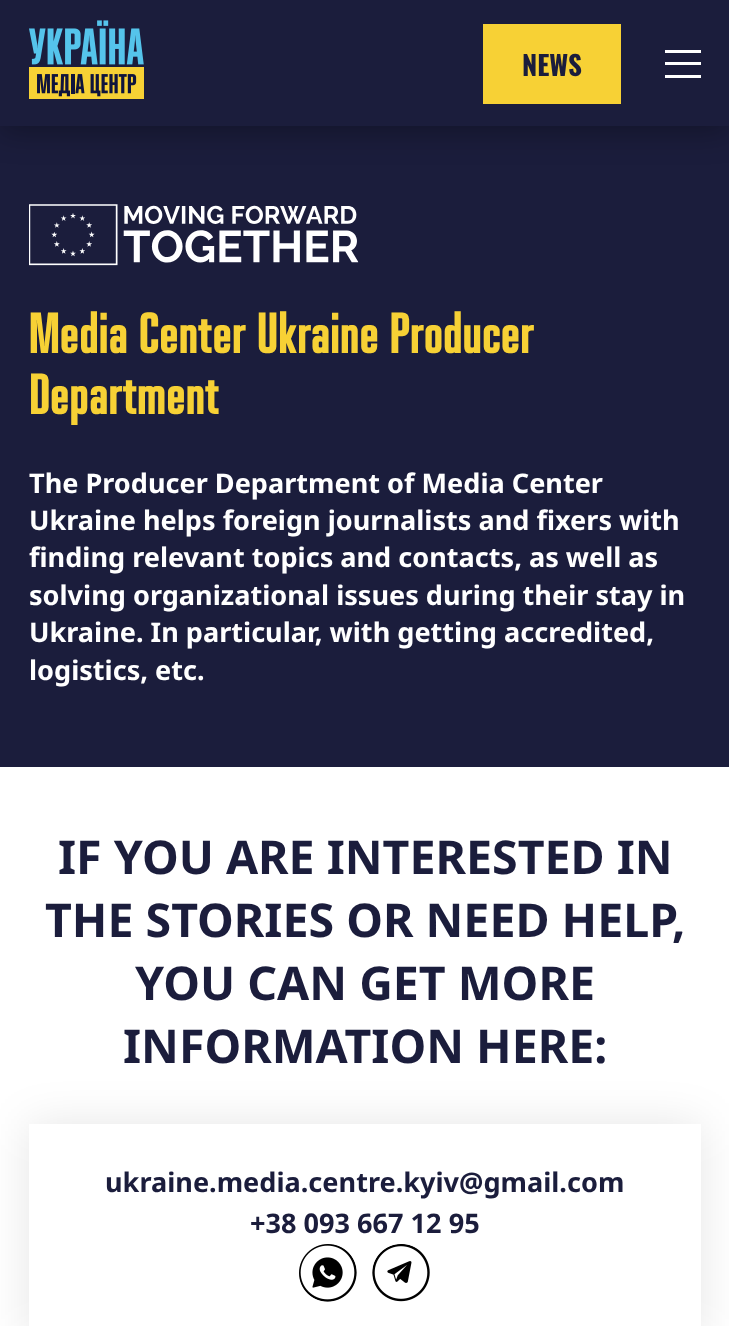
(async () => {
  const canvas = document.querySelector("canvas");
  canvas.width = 729;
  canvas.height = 1326;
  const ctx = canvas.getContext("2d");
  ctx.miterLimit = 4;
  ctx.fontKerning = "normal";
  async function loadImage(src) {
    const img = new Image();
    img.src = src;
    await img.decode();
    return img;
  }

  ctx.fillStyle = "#ffffff";
  ctx.fillRect(0, 0, 729, 1326);
  ctx.fillStyle = "#1b1d3c";
  ctx.fillRect(0, 126, 729, 641);
  ctx.fillStyle = "rgba(0, 0, 0, 0.3)";
  ctx.filter = "blur(15px)";
  ctx.beginPath();
  ctx.rect(0, 6, 729, 126);
  ctx.fill();
  ctx.filter = "none";
  ctx.fillStyle = "#1b1d3c";
  ctx.fillRect(0, 0, 729, 126);
  ctx.drawImage(await loadImage("img/1.png"), 29, 20, 115, 79);
  for (const [x, y, w, h, color] of [
    [483, 24, 138, 80, "#f7d135"],
    [665, 50, 36, 3, "#ffffff"],
    [665, 62, 36, 3, "#ffffff"],
    [665, 75, 36, 3, "#ffffff"],
  ]) {
    ctx.fillStyle = color;
    ctx.fillRect(x, y, w, h);
  }
  ctx.drawImage(await loadImage("img/2.png"), 29, 204, 330, 62);
  ctx.fillStyle = "rgba(0, 0, 0, 0.1)";
  ctx.filter = "blur(22.5px)";
  ctx.beginPath();
  ctx.rect(29, 1124, 672, 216);
  ctx.fill();
  ctx.filter = "none";
  ctx.fillStyle = "#ffffff";
  ctx.fillRect(29, 1124, 672, 202);
  ctx.drawImage(await loadImage("img/3.png"), 299, 1244, 58, 58);
  ctx.drawImage(await loadImage("img/4.png"), 372, 1244, 58, 58);
  ctx.font = "bold 27.1px Oswald";
  ctx.fillStyle = "#1b1d3c";
  ctx.fillText("NEWS", 522, 76);
  ctx.font = "bold 58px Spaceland";
  ctx.fillStyle = "#f7d135";
  ctx.fillText("Media Center Ukraine Producer", 29, 353);
  ctx.fillText("Department", 29, 414);
  ctx.font = "bold 27.1px Noto Sans";
  ctx.fillStyle = "#ffffff";
  for (const [text, x, y] of [
    ["The Producer Department of Media Center", 29, 493],
    ["Ukraine helps foreign journalists and fixers with", 29, 530],
    ["finding relevant topics and contacts, as well as", 29, 567],
    ["solving organizational issues during their stay in", 29, 605],
    ["Ukraine. In particular, with getting accredited,", 29, 642],
    ["logistics, etc.", 29, 680],
  ]) {
    ctx.fillText(text, x, y);
  }
  ctx.font = "bold 46.5px Noto Sans";
  ctx.fillStyle = "#1b1d3c";
  for (const [text, x, y] of [
    ["IF YOU ARE INTERESTED IN", 58, 874],
    ["THE STORIES OR NEED HELP,", 45, 937],
    ["YOU CAN GET MORE", 135, 1000],
    ["INFORMATION HERE:", 123, 1063],
  ]) {
    ctx.fillText(text, x, y);
  }
  ctx.font = "bold 27.1px Noto Sans";
  ctx.fillText("ukraine.media.centre.kyiv@gmail.com", 105, 1192);
  ctx.fillText("+38 093 667 12 95", 250, 1233);
})();
